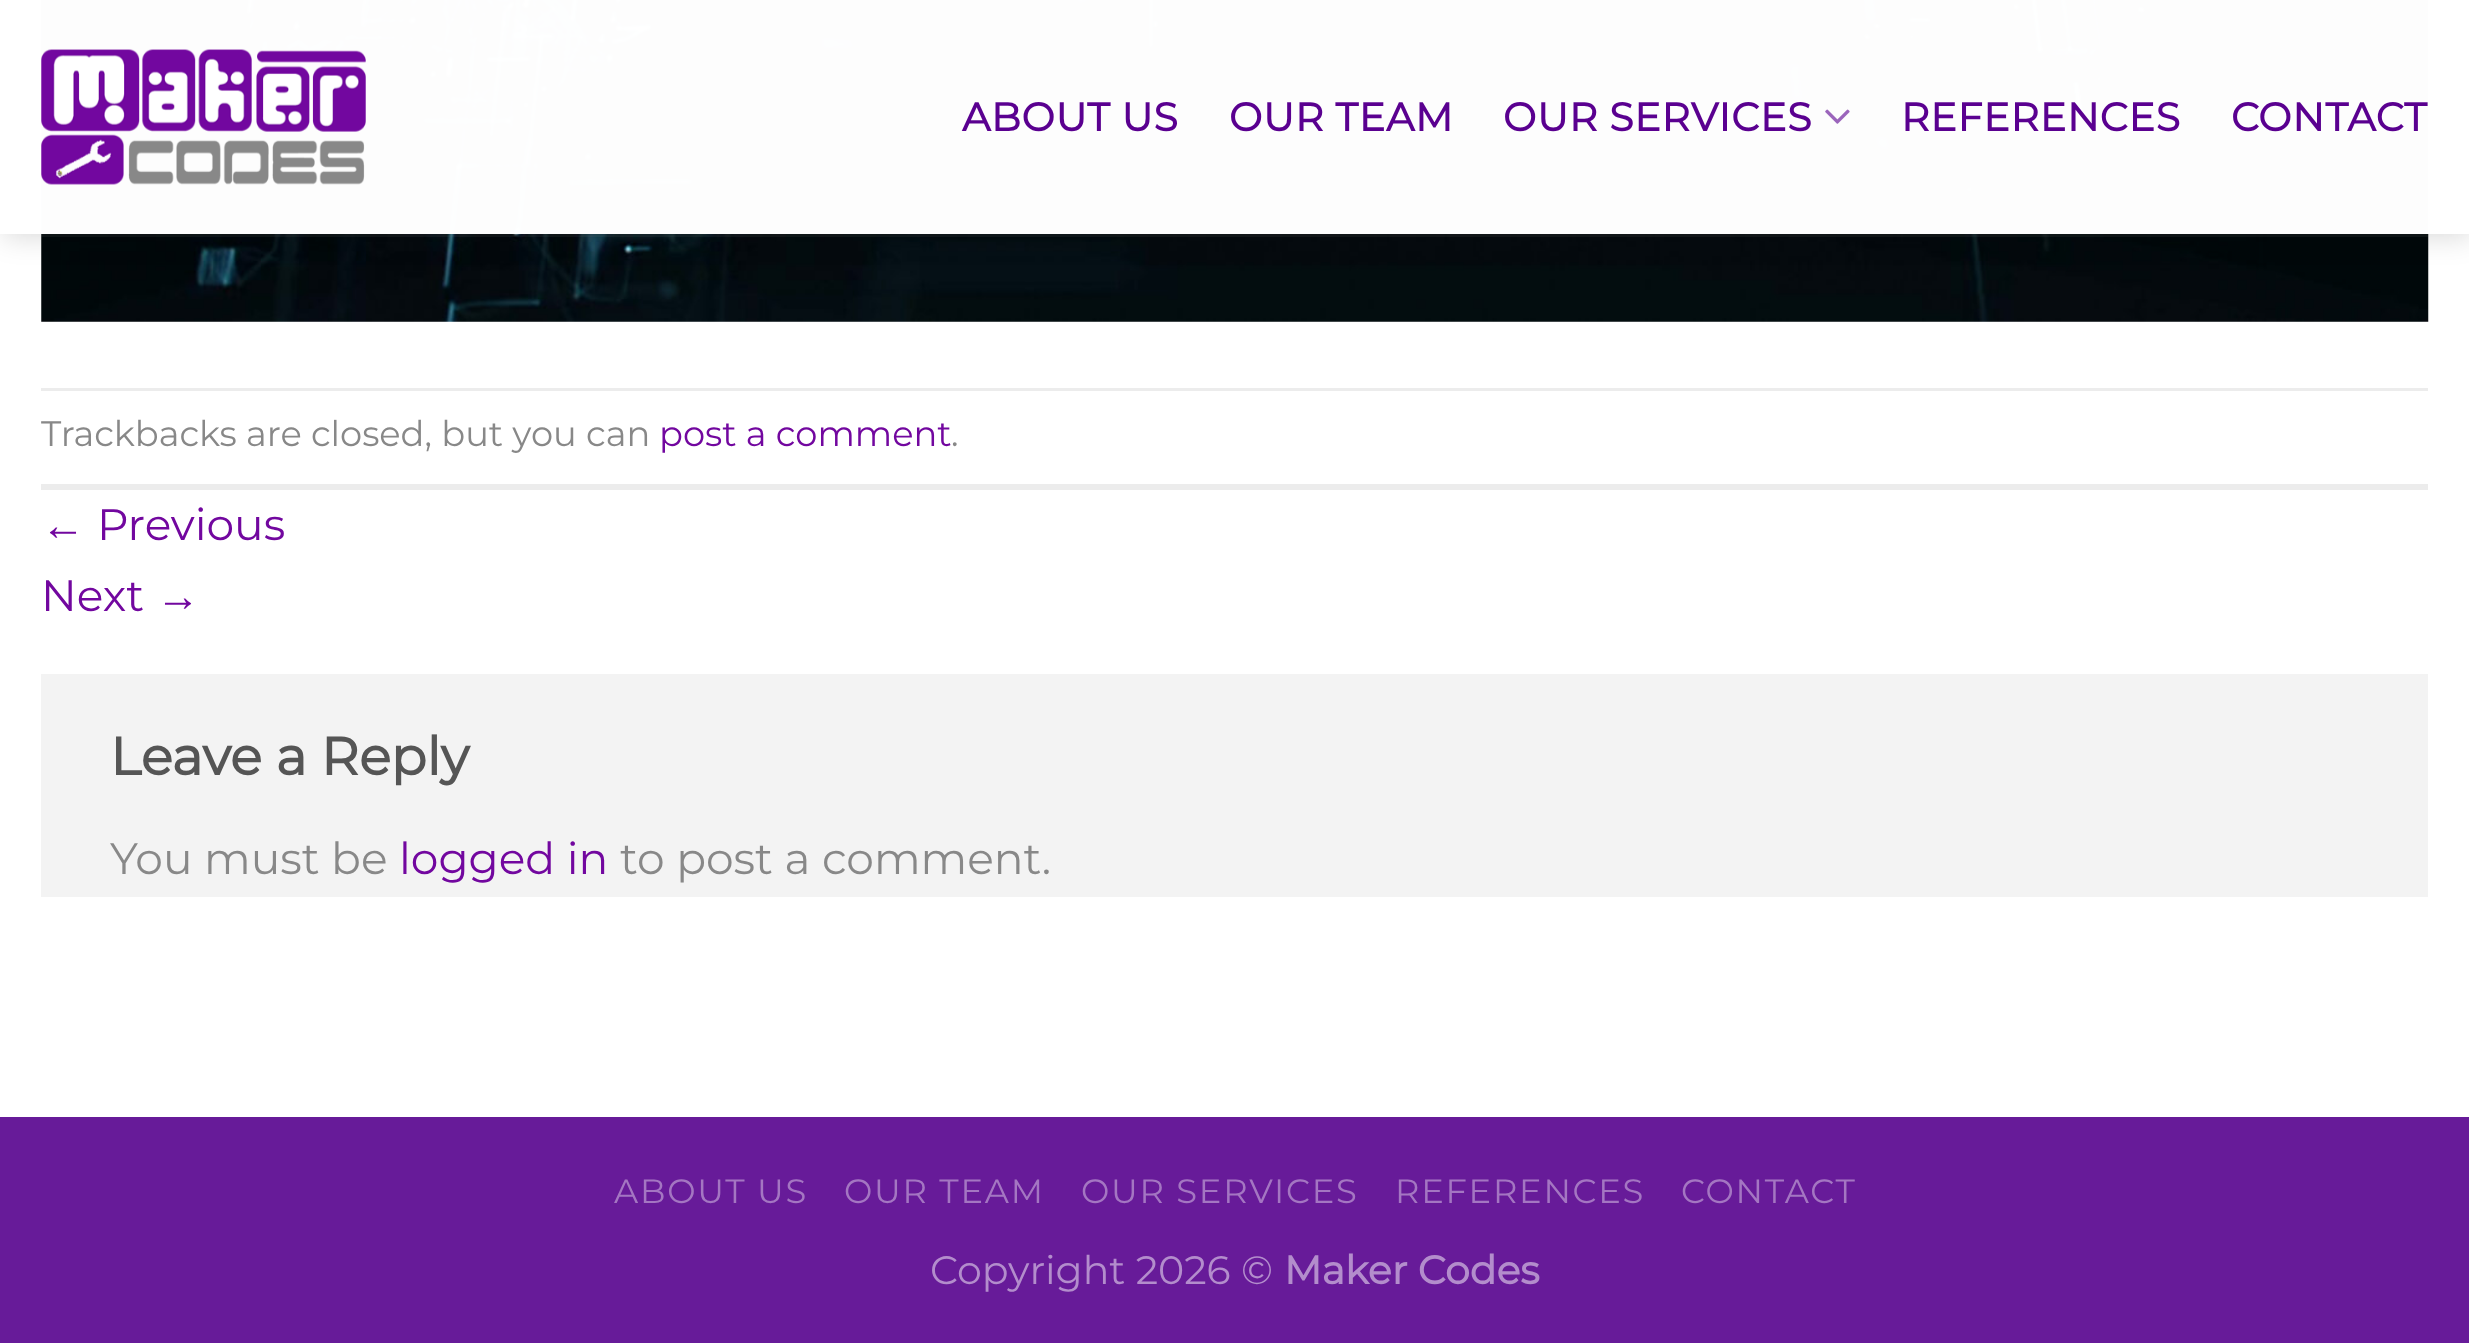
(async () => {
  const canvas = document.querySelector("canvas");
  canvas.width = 2469;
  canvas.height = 1343;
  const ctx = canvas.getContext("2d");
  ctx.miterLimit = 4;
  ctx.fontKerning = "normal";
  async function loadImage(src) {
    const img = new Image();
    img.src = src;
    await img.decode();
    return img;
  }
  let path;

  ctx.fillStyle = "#ffffff";
  ctx.fillRect(0, 0, 2469, 1343);
  ctx.drawImage(await loadImage("img/3.png"), 41, 0, 2388, 322);
  ctx.save();
  path = new Path2D("M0 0H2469V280H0ZM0 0H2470V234H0Z");
  ctx.clip(path, "evenodd");
  ctx.fillStyle = "rgba(0, 0, 0, 0.15)";
  ctx.filter = "blur(14px)";
  ctx.beginPath();
  ctx.rect(3, 3, 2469, 234);
  ctx.fill();
  ctx.filter = "none";
  ctx.restore();
  ctx.fillStyle = "rgba(255, 255, 255, 0.9)";
  ctx.fillRect(3, 0, 2466, 234);
  ctx.fillRect(41, 0, 2388, 234);
  ctx.drawImage(await loadImage("img/1.png"), 41, 49, 325, 136);
  ctx.drawImage(await loadImage("img/2.png"), 1825, 109, 25, 15);
  for (const [x, y, w, h, color] of [
    [41, 234, 2387, 3, "rgba(136, 136, 136, 0.1)"],
    [41, 388, 2387, 3, "#ececec"],
    [41, 484, 2387, 6, "#ececec"],
    [41, 674, 2387, 223, "#f3f3f3"],
    [0, 1117, 2469, 226, "#671b99"],
  ]) {
    ctx.fillStyle = color;
    ctx.fillRect(x, y, w, h);
  }
  ctx.letterSpacing = "0.75px";
  ctx.font = "bold 39.5px Montserrat";
  ctx.fillStyle = "#5a0090";
  for (const [text, x, y] of [
    ["ABOUT US", 962, 131],
    ["OUR TEAM", 1229, 131],
    ["OUR SERVICES", 1503, 131],
    ["REFERENCES", 1901, 131],
    ["CONTACT", 2231, 131],
  ]) {
    ctx.fillText(text, x, y);
  }
  ctx.letterSpacing = "0px";
  ctx.font = "100 35.25px Montserrat";
  ctx.fillStyle = "#888888";
  ctx.fillText("Trackbacks are closed, but you can", 41, 446);
  ctx.fillStyle = "#72079f";
  ctx.fillText("post a comment", 659, 446);
  ctx.fillStyle = "#888888";
  ctx.fillText(".", 951, 446);
  ctx.font = "44px Liberation Sans";
  ctx.fillStyle = "#72079f";
  ctx.fillText("←", 41, 540);
  ctx.font = "100 44px Montserrat";
  ctx.fillText("Previous", 97, 540);
  ctx.fillText("Next", 41, 611);
  ctx.font = "44px Liberation Sans";
  ctx.fillText("→", 156, 611);
  ctx.font = "bold 52.75px Montserrat";
  ctx.fillStyle = "#555555";
  ctx.fillText("Leave a Reply", 110, 775);
  ctx.font = "100 44px Montserrat";
  ctx.fillStyle = "#888888";
  ctx.fillText("You must be", 110, 874);
  ctx.fillStyle = "#72079f";
  ctx.fillText("logged in", 399, 874);
  ctx.fillStyle = "#888888";
  ctx.fillText("to post a comment.", 620, 874);
  ctx.letterSpacing = "1.75px";
  ctx.font = "100 33.75px Montserrat";
  ctx.fillStyle = "#a476c2";
  for (const [text, x, y] of [
    ["ABOUT US", 614, 1203],
    ["OUR TEAM", 844, 1203],
    ["OUR SERVICES", 1081, 1203],
    ["REFERENCES", 1395, 1203],
    ["CONTACT", 1681, 1203],
  ]) {
    ctx.fillText(text, x, y);
  }
  ctx.letterSpacing = "0px";
  ctx.font = "100 39.5px Montserrat";
  ctx.fillStyle = "#b38dcc";
  ctx.fillText("Copyright 2026 ©", 930, 1284);
  ctx.font = "bold 39.5px Montserrat";
  ctx.fillText("Maker Codes", 1284, 1284);
})();
